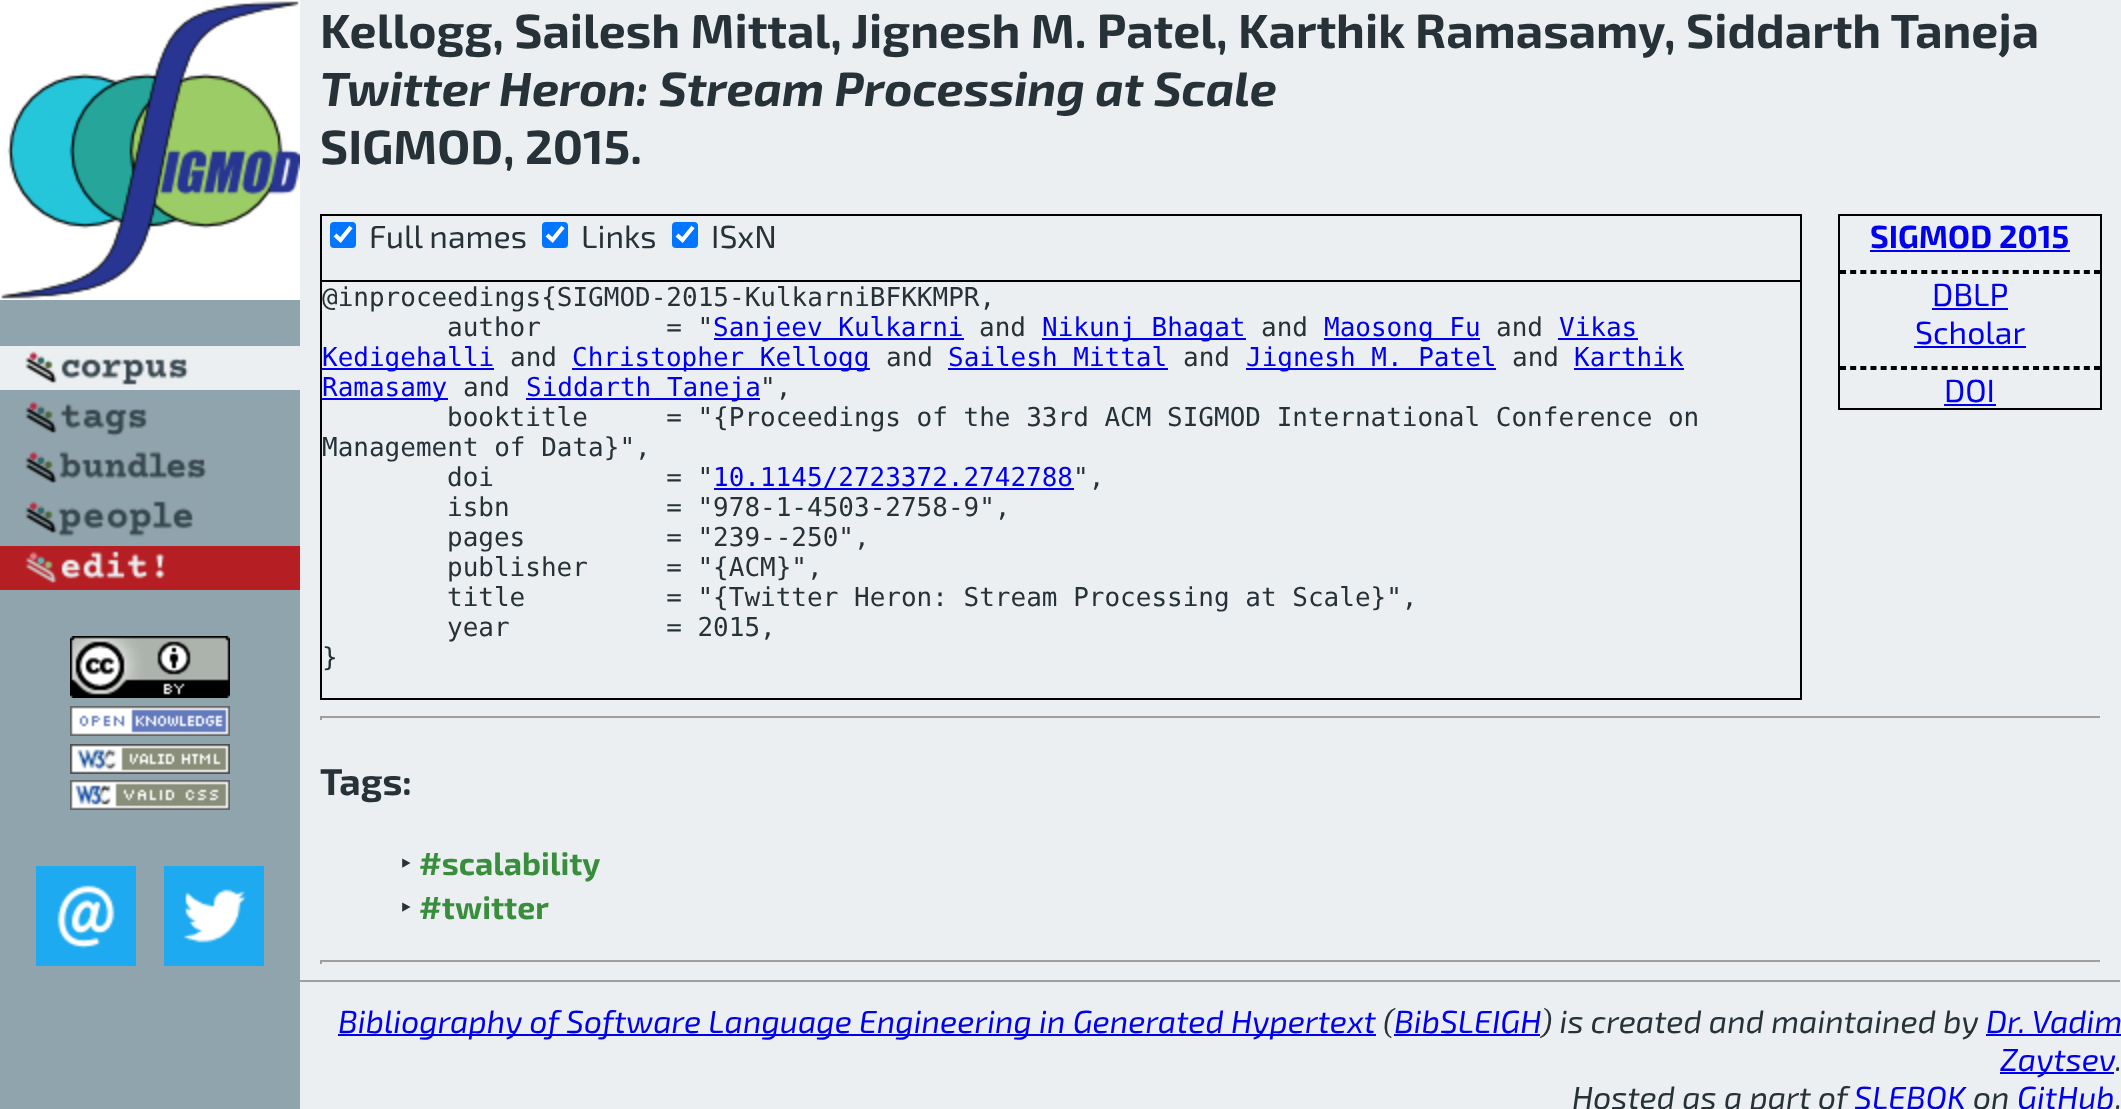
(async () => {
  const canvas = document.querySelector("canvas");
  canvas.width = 2121;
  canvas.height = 1109;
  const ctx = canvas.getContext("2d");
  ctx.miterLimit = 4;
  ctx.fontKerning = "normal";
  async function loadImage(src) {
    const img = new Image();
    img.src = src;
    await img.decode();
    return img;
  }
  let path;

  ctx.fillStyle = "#eceff1";
  ctx.fillRect(0, 0, 2121, 1109);
  ctx.fillStyle = "#90a4ae";
  ctx.fillRect(0, 300, 300, 809);
  ctx.drawImage(await loadImage("img/1.png"), 0, 0, 300, 300);
  ctx.drawImage(await loadImage("img/2.png"), 0, 346, 300, 44);
  ctx.drawImage(await loadImage("img/3.png"), 25, 401, 122, 36);
  ctx.drawImage(await loadImage("img/4.png"), 25, 451, 182, 33);
  ctx.drawImage(await loadImage("img/5.png"), 25, 501, 169, 36);
  ctx.drawImage(await loadImage("img/6.png"), 0, 546, 300, 44);
  ctx.drawImage(await loadImage("img/7.png"), 70, 636, 160, 62);
  ctx.drawImage(await loadImage("img/8.png"), 70, 706, 160, 30);
  ctx.drawImage(await loadImage("img/9.png"), 70, 744, 160, 30);
  ctx.drawImage(await loadImage("img/10.png"), 70, 780, 160, 30);
  ctx.drawImage(await loadImage("img/11.png"), 36, 866, 100, 100);
  ctx.drawImage(await loadImage("img/12.png"), 164, 866, 100, 100);
  ctx.strokeStyle = "#000000";
  ctx.lineWidth = 2;
  ctx.strokeRect(321, 215, 1480, 484);
  ctx.fillStyle = "#0075ff";
  ctx.beginPath();
  ctx.roundRect(330, 222, 26, 26, 4);
  ctx.fill();
  path = new Path2D("M335 235L340.5 240L351 227");
  ctx.strokeStyle = "#ffffff";
  ctx.lineWidth = 4.2;
  ctx.stroke(path);
  ctx.beginPath();
  ctx.roundRect(542, 222, 26, 26, 4);
  ctx.fill();
  path = new Path2D("M547 235L552.5 240L563 227");
  ctx.stroke(path);
  ctx.beginPath();
  ctx.roundRect(672, 222, 26, 26, 4);
  ctx.fill();
  path = new Path2D("M677 235L682.5 240L693 227");
  ctx.stroke(path);
  for (const [x, y, w, h, color] of [
    [322, 280, 1478, 2, "#000000"],
    [714, 338, 250, 2, "#0000ee"],
    [1042, 338, 204, 2, "#0000ee"],
    [1324, 338, 156, 2, "#0000ee"],
    [1558, 338, 80, 2, "#0000ee"],
    [322, 368, 172, 2, "#0000ee"],
    [572, 368, 298, 2, "#0000ee"],
    [948, 368, 220, 2, "#0000ee"],
    [1246, 368, 250, 2, "#0000ee"],
    [1574, 368, 110, 2, "#0000ee"],
    [322, 398, 126, 2, "#0000ee"],
    [526, 398, 234, 2, "#0000ee"],
    [714, 488, 360, 2, "#0000ee"],
  ]) {
    ctx.fillStyle = color;
    ctx.fillRect(x, y, w, h);
  }
  ctx.strokeStyle = "#000000";
  ctx.lineWidth = 2;
  ctx.strokeRect(1839, 215, 262, 194);
  ctx.fillRect(1870, 250, 200, 2);
  path = new Path2D("M1840 271H2100");
  ctx.setLineDash([6, 4.16]);
  ctx.stroke(path);
  ctx.fillStyle = "#000000";
  ctx.fillRect(2098, 270, 2, 4);
  path = new Path2D("M1840 273H2100");
  ctx.stroke(path);
  ctx.fillStyle = "#0000ee";
  ctx.fillRect(1932, 308, 76, 2);
  ctx.fillRect(1914, 346, 112, 2);
  path = new Path2D("M1840 367H2100");
  ctx.stroke(path);
  ctx.fillStyle = "#000000";
  ctx.fillRect(2098, 366, 2, 4);
  path = new Path2D("M1840 369H2100");
  ctx.stroke(path);
  for (const [x, y, w, h, color] of [
    [1944, 404, 52, 2, "#0000ee"],
    [320, 716, 1782, 2, "#9f9f9f"],
    [2100, 716, 2, 4, "#eeeeee"],
    [320, 718, 1782, 2, "#eeeeee"],
    [320, 716, 2, 4, "#9f9f9f"],
    [320, 960, 1782, 2, "#9f9f9f"],
    [2100, 960, 2, 4, "#eeeeee"],
    [320, 962, 1782, 2, "#eeeeee"],
    [320, 960, 2, 4, "#9f9f9f"],
    [300, 980, 1821, 2, "#9f9f9f"],
    [2120, 980, 1, 4, "#eeeeee"],
    [300, 982, 1821, 2, "#eeeeee"],
    [338, 1034, 1038, 2, "#0000ee"],
    [1986, 1034, 135, 2, "#0000ee"],
    [2000, 1072, 114, 2, "#0000ee"],
  ]) {
    ctx.fillStyle = color;
    ctx.fillRect(x, y, w, h);
  }
  ctx.font = "bold 48px 'Exo 2'";
  ctx.fillStyle = "#263238";
  ctx.fillText("Kellogg, Sailesh Mittal, Jignesh M. Patel, Karthik Ramasamy, Siddarth Taneja", 320, 48);
  ctx.font = "italic bold 48px 'Exo 2'";
  ctx.fillText("Twitter", 320, 106);
  ctx.fillText("Heron: Stream Processing at Scale", 499, 106);
  ctx.font = "bold 48px 'Exo 2'";
  ctx.fillText("SIGMOD, 2015.", 320, 164);
  ctx.font = "32px 'Exo 2'";
  for (const [text, x, y] of [
    ["Full names", 369, 248],
    ["Links", 581, 248],
    ["ISxN", 711, 248],
  ]) {
    ctx.fillText(text, x, y);
  }
  ctx.font = "26px DejaVu Sans Mono";
  ctx.fillText("@inproceedings{SIGMOD-2015-KulkarniBFKKMPR,", 322, 306);
  ctx.fillText("author        = \"", 447, 336);
  ctx.fillStyle = "#0000ee";
  ctx.fillText("Sanjeev Kulkarni", 713, 336);
  ctx.fillStyle = "#263238";
  ctx.fillText("and", 979, 336);
  ctx.fillStyle = "#0000ee";
  ctx.fillText("Nikunj Bhagat", 1042, 336);
  ctx.fillStyle = "#263238";
  ctx.fillText("and", 1261, 336);
  ctx.fillStyle = "#0000ee";
  ctx.fillText("Maosong Fu", 1324, 336);
  ctx.fillStyle = "#263238";
  ctx.fillText("and", 1496, 336);
  ctx.fillStyle = "#0000ee";
  ctx.fillText("Vikas", 1559, 336);
  ctx.fillText("Kedigehalli", 322, 366);
  ctx.fillStyle = "#263238";
  ctx.fillText("and", 510, 366);
  ctx.fillStyle = "#0000ee";
  ctx.fillText("Christopher Kellogg", 572, 366);
  ctx.fillStyle = "#263238";
  ctx.fillText("and", 886, 366);
  ctx.fillStyle = "#0000ee";
  ctx.fillText("Sailesh Mittal", 948, 366);
  ctx.fillStyle = "#263238";
  ctx.fillText("and", 1183, 366);
  ctx.fillStyle = "#0000ee";
  ctx.fillText("Jignesh M. Patel", 1246, 366);
  ctx.fillStyle = "#263238";
  ctx.fillText("and", 1512, 366);
  ctx.fillStyle = "#0000ee";
  ctx.fillText("Karthik", 1574, 366);
  ctx.fillText("Ramasamy", 322, 396);
  ctx.fillStyle = "#263238";
  ctx.fillText("and", 463, 396);
  ctx.fillStyle = "#0000ee";
  ctx.fillText("Siddarth Taneja", 526, 396);
  ctx.fillStyle = "#263238";
  for (const [text, x, y] of [
    ["\",", 760, 396],
    ["booktitle     = \"{Proceedings of the 33rd ACM SIGMOD International Conference on", 447, 426],
    ["Management of Data}\",", 322, 456],
    ["doi           = \"", 447, 486],
  ]) {
    ctx.fillText(text, x, y);
  }
  ctx.fillStyle = "#0000ee";
  ctx.fillText("10.1145/2723372.2742788", 713, 486);
  ctx.fillStyle = "#263238";
  for (const [text, x, y] of [
    ["\",", 1073, 486],
    ["isbn          = \"978-1-4503-2758-9\",", 447, 516],
    ["pages         = \"239--250\",", 447, 546],
    ["publisher     = \"{ACM}\",", 447, 576],
    ["title         = \"{Twitter Heron: Stream Processing at Scale}\",", 447, 606],
    ["year          = 2015,", 447, 636],
    ["}", 322, 666],
  ]) {
    ctx.fillText(text, x, y);
  }
  ctx.font = "bold 32px 'Exo 2'";
  ctx.fillStyle = "#0000ee";
  ctx.fillText("SIGMOD 2015", 1870, 248);
  ctx.font = "32px 'Exo 2'";
  for (const [text, x, y] of [
    ["DBLP", 1932, 306],
    ["Scholar", 1915, 344],
    ["DOI", 1944, 402],
  ]) {
    ctx.fillText(text, x, y);
  }
  ctx.font = "bold 37.5px 'Exo 2'";
  ctx.fillStyle = "#263238";
  ctx.fillText("Tags:", 320, 795);
  ctx.font = "32px Noto Sans";
  ctx.fillText("‣", 400, 875);
  ctx.font = "bold 32px 'Exo 2'";
  ctx.fillStyle = "#388e3c";
  ctx.fillText("#scalability", 419, 875);
  ctx.font = "32px Noto Sans";
  ctx.fillStyle = "#263238";
  ctx.fillText("‣", 400, 919);
  ctx.font = "bold 32px 'Exo 2'";
  ctx.fillStyle = "#388e3c";
  ctx.fillText("#twitter", 419, 919);
  ctx.font = "italic 32px 'Exo 2'";
  ctx.fillStyle = "#0000ee";
  ctx.fillText("Bibliography of Software Language Engineering in Generated Hypertext", 338, 1033);
  ctx.fillStyle = "#263238";
  ctx.fillText("(", 1383, 1033);
  ctx.fillStyle = "#0000ee";
  ctx.fillText("BibSLEIGH", 1394, 1033);
  ctx.fillStyle = "#263238";
  ctx.fillText(") is created and maintained by", 1541, 1033);
  ctx.fillStyle = "#0000ee";
  ctx.fillRect(1394, 1034, 146, 2);
  ctx.fillText("Dr. Vadim", 1986, 1033);
  ctx.fillText("Zaytsev", 2000, 1071);
  ctx.fillStyle = "#263238";
  ctx.fillText(".", 2115, 1071);
  ctx.fillText("Hosted as a part of", 1572, 1109);
  ctx.fillStyle = "#0000ee";
  ctx.fillText("SLEBOK", 1854, 1109);
  ctx.fillStyle = "#263238";
  ctx.fillText("on", 1973, 1109);
  ctx.fillStyle = "#0000ee";
  ctx.fillText("GitHub", 2017, 1109);
  ctx.fillStyle = "#263238";
  ctx.fillText(".", 2115, 1109);
})();
